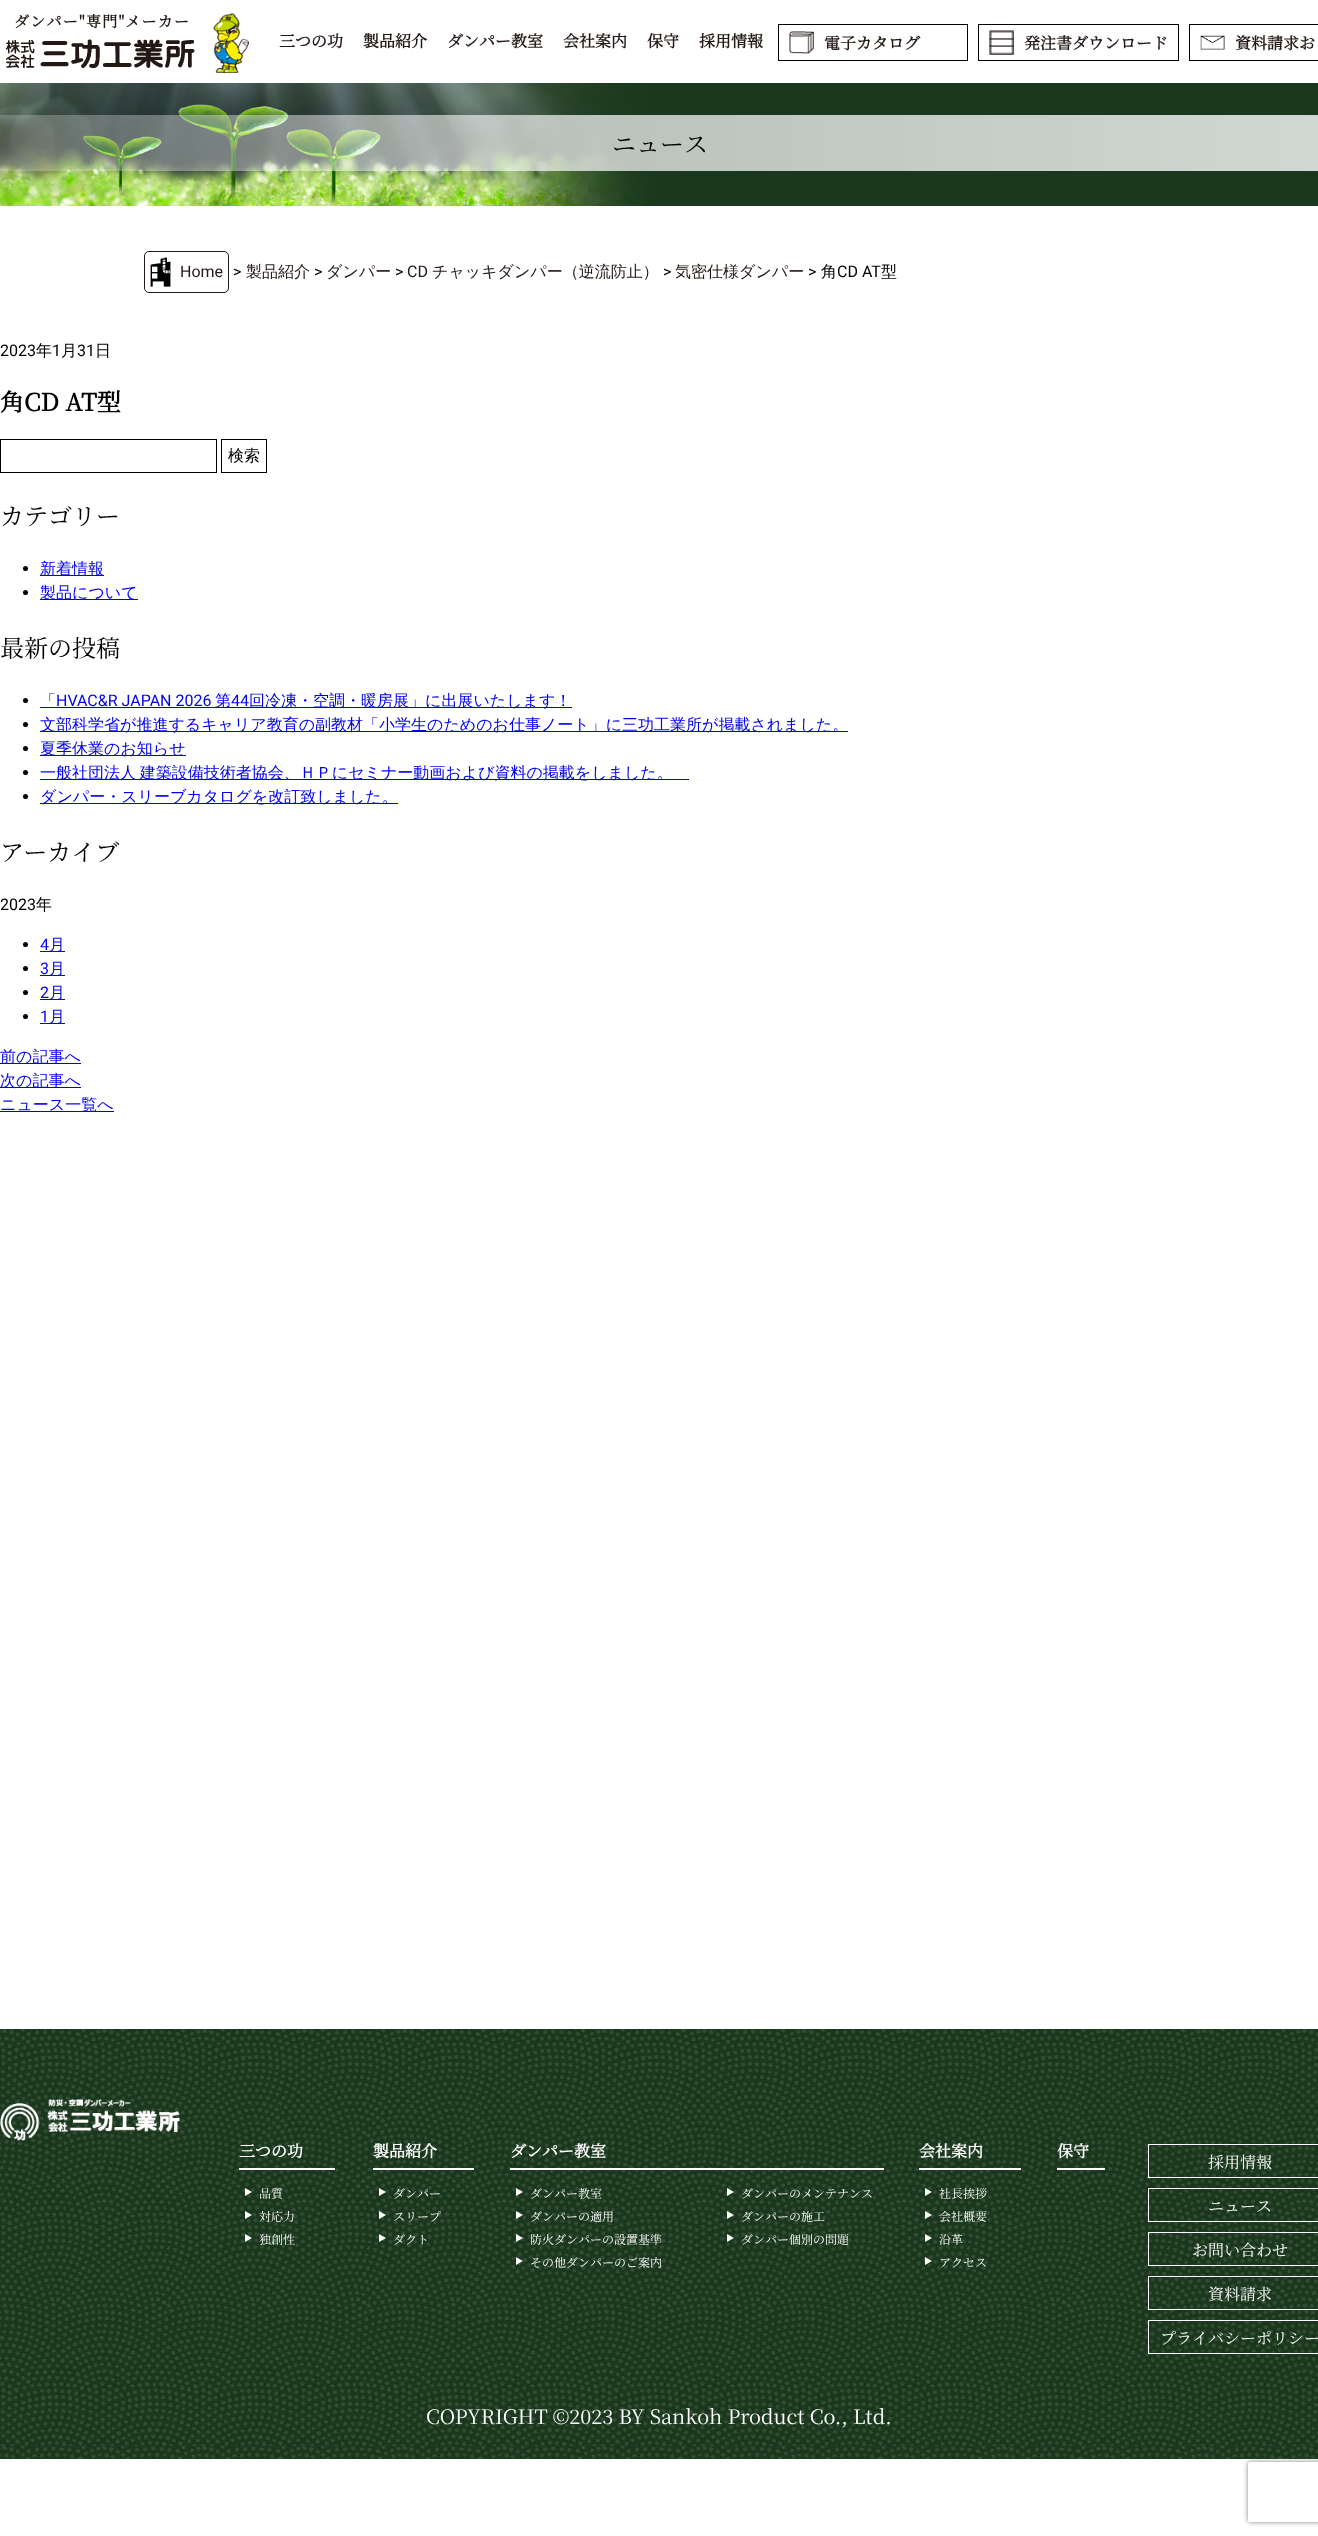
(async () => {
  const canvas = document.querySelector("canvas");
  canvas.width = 1318;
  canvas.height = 2536;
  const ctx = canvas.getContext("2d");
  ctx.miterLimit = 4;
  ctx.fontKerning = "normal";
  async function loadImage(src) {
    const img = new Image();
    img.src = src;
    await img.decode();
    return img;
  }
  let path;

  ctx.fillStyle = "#ffffff";
  ctx.fillRect(0, 0, 1318, 2536);
  ctx.drawImage(await loadImage("img/1.png"), 5, 39, 190, 29);
  ctx.drawImage(await loadImage("img/2.png"), 213, 13, 36, 60);
  ctx.strokeStyle = "#000000";
  ctx.strokeRect(778.5, 24.5, 189, 36);
  ctx.drawImage(await loadImage("img/3.png"), 789, 31, 25, 23);
  ctx.strokeRect(978.5, 24.5, 200, 36);
  ctx.drawImage(await loadImage("img/4.png"), 989, 30, 25, 25);
  ctx.strokeRect(1189.5, 24.5, 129, 36);
  ctx.drawImage(await loadImage("img/5.png"), 1200, 35, 25, 15);
  ctx.drawImage(await loadImage("img/6.png"), 0, 83, 1318, 123);
  ctx.beginPath();
  ctx.roundRect(144.5, 251.5, 84, 41, 4.5);
  ctx.strokeStyle = "#231815";
  ctx.stroke();
  ctx.drawImage(await loadImage("img/7.png"), 150, 257, 21, 30);
  ctx.strokeStyle = "#000000";
  ctx.strokeRect(0.5, 439.5, 216, 33);
  ctx.strokeRect(221.5, 439.5, 45, 33);
  ctx.fillStyle = "#000000";
  ctx.beginPath();
  ctx.arc(25.5, 568.5, 2.5, 0, Math.PI * 2);
  ctx.fill();
  ctx.fillStyle = "#0000ee";
  ctx.fillRect(40, 575, 64, 1);
  ctx.fillStyle = "#000000";
  ctx.beginPath();
  ctx.arc(25.5, 592.5, 2.5, 0, Math.PI * 2);
  ctx.fill();
  ctx.fillStyle = "#0000ee";
  ctx.fillRect(40, 599, 98, 1);
  ctx.fillStyle = "#000000";
  ctx.beginPath();
  ctx.arc(25.5, 700.5, 2.5, 0, Math.PI * 2);
  ctx.fill();
  ctx.fillStyle = "#0000ee";
  ctx.fillRect(40, 707, 532, 1);
  ctx.fillStyle = "#000000";
  ctx.beginPath();
  ctx.arc(25.5, 724.5, 2.5, 0, Math.PI * 2);
  ctx.fill();
  ctx.fillStyle = "#0000ee";
  ctx.fillRect(40, 731, 808, 1);
  ctx.fillStyle = "#000000";
  ctx.beginPath();
  ctx.arc(25.5, 748.5, 2.5, 0, Math.PI * 2);
  ctx.fill();
  ctx.fillStyle = "#0000ee";
  ctx.fillRect(40, 755, 146, 1);
  ctx.fillStyle = "#000000";
  ctx.beginPath();
  ctx.arc(25.5, 772.5, 2.5, 0, Math.PI * 2);
  ctx.fill();
  ctx.fillStyle = "#0000ee";
  ctx.fillRect(40, 779, 649, 1);
  ctx.fillStyle = "#000000";
  ctx.beginPath();
  ctx.arc(25.5, 796.5, 2.5, 0, Math.PI * 2);
  ctx.fill();
  ctx.fillStyle = "#0000ee";
  ctx.fillRect(40, 803, 358, 1);
  ctx.fillStyle = "#000000";
  ctx.beginPath();
  ctx.arc(25.5, 944.5, 2.5, 0, Math.PI * 2);
  ctx.fill();
  ctx.fillStyle = "#0000ee";
  ctx.fillRect(40, 951, 25, 1);
  ctx.fillStyle = "#000000";
  ctx.beginPath();
  ctx.arc(25.5, 968.5, 2.5, 0, Math.PI * 2);
  ctx.fill();
  ctx.fillStyle = "#0000ee";
  ctx.fillRect(40, 975, 25, 1);
  ctx.fillStyle = "#000000";
  ctx.beginPath();
  ctx.arc(25.5, 992.5, 2.5, 0, Math.PI * 2);
  ctx.fill();
  ctx.fillStyle = "#0000ee";
  ctx.fillRect(40, 999, 25, 1);
  ctx.fillStyle = "#000000";
  ctx.beginPath();
  ctx.arc(25.5, 1016.5, 2.5, 0, Math.PI * 2);
  ctx.fill();
  for (const [x, y, w, h, color] of [
    [40, 1023, 25, 1, "#0000ee"],
    [0, 1063, 81, 1, "#0000ee"],
    [0, 1087, 81, 1, "#0000ee"],
    [0, 1111, 114, 1, "#0000ee"],
  ]) {
    ctx.fillStyle = color;
    ctx.fillRect(x, y, w, h);
  }
  ctx.drawImage(await loadImage("img/8.png"), 0, 2029, 1318, 430);
  ctx.drawImage(await loadImage("img/9.png"), 0, 2099, 180, 42);
  ctx.fillStyle = "#ffffff";
  ctx.fillRect(239, 2168, 96, 2);
  path = new Path2D("M245 2196V2188L252 2192Z");
  ctx.fill(path);
  path = new Path2D("M245 2219V2211L252 2215Z");
  ctx.fill(path);
  path = new Path2D("M245 2242V2234L252 2238Z");
  ctx.fill(path);
  ctx.fillRect(373, 2168, 101, 2);
  path = new Path2D("M379 2196V2188L386 2192Z");
  ctx.fill(path);
  path = new Path2D("M379 2219V2211L386 2215Z");
  ctx.fill(path);
  path = new Path2D("M379 2242V2234L386 2238Z");
  ctx.fill(path);
  ctx.fillRect(510, 2168, 374, 2);
  path = new Path2D("M516 2196V2188L523 2192Z");
  ctx.fill(path);
  path = new Path2D("M727 2196V2188L734 2192Z");
  ctx.fill(path);
  path = new Path2D("M516 2219V2211L523 2215Z");
  ctx.fill(path);
  path = new Path2D("M727 2219V2211L734 2215Z");
  ctx.fill(path);
  path = new Path2D("M516 2242V2234L523 2238Z");
  ctx.fill(path);
  path = new Path2D("M727 2242V2234L734 2238Z");
  ctx.fill(path);
  path = new Path2D("M516 2265V2257L523 2261Z");
  ctx.fill(path);
  ctx.fillRect(919, 2168, 102, 2);
  path = new Path2D("M925 2196V2188L932 2192Z");
  ctx.fill(path);
  path = new Path2D("M925 2219V2211L932 2215Z");
  ctx.fill(path);
  path = new Path2D("M925 2242V2234L932 2238Z");
  ctx.fill(path);
  path = new Path2D("M925 2265V2257L932 2261Z");
  ctx.fill(path);
  ctx.fillRect(1057, 2168, 48, 2);
  ctx.strokeStyle = "#ffffff";
  ctx.strokeRect(1148.5, 2144.5, 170, 33);
  ctx.strokeRect(1148.5, 2188.5, 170, 33);
  ctx.strokeRect(1148.5, 2232.5, 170, 33);
  ctx.strokeRect(1148.5, 2276.5, 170, 33);
  ctx.strokeRect(1148.5, 2320.5, 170, 33);
  ctx.save();
  path = new Path2D("M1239 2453H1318V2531H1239ZM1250 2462H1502C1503 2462 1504 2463 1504 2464V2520C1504 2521 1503 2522 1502 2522H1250C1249 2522 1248 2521 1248 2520V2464C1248 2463 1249 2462 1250 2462Z");
  ctx.clip(path, "evenodd");
  ctx.fillStyle = "#808080";
  ctx.filter = "blur(2.5px)";
  ctx.beginPath();
  ctx.roundRect(1248, 2462, 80, 60, 2);
  ctx.fill();
  ctx.filter = "none";
  ctx.restore();
  ctx.letterSpacing = "1.25px";
  ctx.font = "bold 15px Noto Serif JP";
  ctx.fillStyle = "#231815";
  ctx.fillText("ダンパー\"専門\"メーカー", 14, 27);
  ctx.letterSpacing = "0px";
  ctx.font = "bold 16px Noto Serif JP";
  for (const [text, x, y] of [
    ["三つの功", 279, 47],
    ["製品紹介", 363, 47],
    ["ダンパー教室", 447, 47],
    ["会社案内", 563, 47],
    ["保守", 647, 47],
    ["採用情報", 699, 47],
    ["電子カタログ", 824, 49],
    ["発注書ダウンロード", 1024, 49],
    ["資料請求お", 1235, 49],
  ]) {
    ctx.fillText(text, x, y);
  }
  ctx.font = "200 24px Noto Serif JP";
  ctx.fillStyle = "#000000";
  ctx.fillText("ニュース", 612, 153);
  ctx.font = "16px Roboto";
  ctx.fillStyle = "#231815";
  ctx.fillText("Home", 180, 277);
  ctx.fillStyle = "#000000";
  ctx.fillText(">", 233, 277);
  ctx.font = "500 16px WenQuanYi Zen Hei";
  ctx.fillStyle = "#231815";
  ctx.fillText("製品紹介", 246, 277);
  ctx.font = "16px Roboto";
  ctx.fillStyle = "#000000";
  ctx.fillText(">", 314, 277);
  ctx.font = "500 16px WenQuanYi Zen Hei";
  ctx.fillStyle = "#231815";
  ctx.fillText("ダンパー", 326, 277);
  ctx.font = "16px Roboto";
  ctx.fillStyle = "#000000";
  ctx.fillText(">", 395, 277);
  ctx.fillStyle = "#231815";
  ctx.fillText("CD", 407, 277);
  ctx.font = "500 16px WenQuanYi Zen Hei";
  ctx.fillText("チャッキダンパー（逆流防止）", 432, 277);
  ctx.font = "16px Roboto";
  ctx.fillStyle = "#000000";
  ctx.fillText(">", 663, 277);
  ctx.font = "500 16px WenQuanYi Zen Hei";
  ctx.fillStyle = "#231815";
  ctx.fillText("気密仕様ダンパー", 675, 277);
  ctx.font = "16px Roboto";
  ctx.fillStyle = "#000000";
  ctx.fillText(">", 808, 277);
  ctx.font = "500 16px WenQuanYi Zen Hei";
  ctx.fillText("角", 821, 277);
  ctx.font = "16px Roboto";
  ctx.fillText("CD AT", 837, 277);
  ctx.font = "500 16px WenQuanYi Zen Hei";
  ctx.fillText("型", 881, 277);
  ctx.font = "16px Roboto";
  ctx.fillText("2023", 0, 356);
  ctx.font = "500 16px WenQuanYi Zen Hei";
  ctx.fillText("年", 36, 356);
  ctx.font = "16px Roboto";
  ctx.fillText("1", 52, 356);
  ctx.font = "500 16px WenQuanYi Zen Hei";
  ctx.fillText("月", 61, 356);
  ctx.font = "16px Roboto";
  ctx.fillText("31", 77, 356);
  ctx.font = "500 16px WenQuanYi Zen Hei";
  ctx.fillText("日", 95, 356);
  ctx.font = "bold 24px Noto Serif JP";
  ctx.fillText("角CD AT型", 0, 411);
  ctx.font = "500 16px WenQuanYi Zen Hei";
  ctx.fillText("検索", 228, 461);
  ctx.font = "200 24px Noto Serif JP";
  ctx.fillText("カテゴリー", 0, 525);
  ctx.font = "500 16px WenQuanYi Zen Hei";
  ctx.fillStyle = "#0000ee";
  ctx.fillText("新着情報", 40, 574);
  ctx.fillText("製品について", 40, 598);
  ctx.font = "200 24px Noto Serif JP";
  ctx.fillStyle = "#000000";
  ctx.fillText("最新の投稿", 0, 657);
  ctx.font = "500 16px WenQuanYi Zen Hei";
  ctx.fillStyle = "#0000ee";
  ctx.fillText("「", 40, 706);
  ctx.font = "16px Roboto";
  ctx.fillText("HVAC&R JAPAN 2026", 56, 706);
  ctx.font = "500 16px WenQuanYi Zen Hei";
  ctx.fillText("第", 215, 706);
  ctx.font = "16px Roboto";
  ctx.fillText("44", 231, 706);
  ctx.font = "500 16px WenQuanYi Zen Hei";
  for (const [text, x, y] of [
    ["回冷凍・空調・暖房展」に出展いたします！", 249, 706],
    ["文部科学省が推進するキャリア教育の副教材「小学生のためのお仕事ノート」に三功工業所が掲載されました。", 40, 730],
    ["夏季休業のお知らせ", 40, 754],
  ]) {
    ctx.fillText(text, x, y);
  }
  ctx.wordSpacing = "-1px";
  ctx.fillText("一般社団法人 建築設備技術者協会、ＨＰにセミナー動画および資料の掲載をしました。", 40, 778);
  ctx.wordSpacing = "0px";
  ctx.font = "16px Roboto";
  ctx.fillText("￼", 673, 778);
  ctx.font = "500 16px WenQuanYi Zen Hei";
  ctx.fillText("ダンパー・スリーブカタログを改訂致しました。", 40, 802);
  ctx.font = "200 24px Noto Serif JP";
  ctx.fillStyle = "#000000";
  ctx.fillText("アーカイブ", 0, 861);
  ctx.font = "16px Roboto";
  ctx.fillText("2023", 0, 910);
  ctx.font = "500 16px WenQuanYi Zen Hei";
  ctx.fillText("年", 36, 910);
  ctx.font = "16px Roboto";
  ctx.fillStyle = "#0000ee";
  ctx.fillText("4", 40, 950);
  ctx.font = "500 16px WenQuanYi Zen Hei";
  ctx.fillText("月", 49, 950);
  ctx.font = "16px Roboto";
  ctx.fillText("3", 40, 974);
  ctx.font = "500 16px WenQuanYi Zen Hei";
  ctx.fillText("月", 49, 974);
  ctx.font = "16px Roboto";
  ctx.fillText("2", 40, 998);
  ctx.font = "500 16px WenQuanYi Zen Hei";
  ctx.fillText("月", 49, 998);
  ctx.font = "16px Roboto";
  ctx.fillText("1", 40, 1022);
  ctx.font = "500 16px WenQuanYi Zen Hei";
  for (const [text, x, y] of [
    ["月", 49, 1022],
    ["前の記事へ", 0, 1062],
    ["次の記事へ", 0, 1086],
    ["ニュース一覧へ", 0, 1110],
  ]) {
    ctx.fillText(text, x, y);
  }
  ctx.font = "bold 16px Noto Serif JP";
  ctx.fillStyle = "#ffffff";
  ctx.fillText("三つの功", 239, 2157);
  ctx.font = "200 12px Noto Serif JP";
  for (const [text, x, y] of [
    ["品質", 259, 2198],
    ["対応力", 259, 2221],
    ["独創性", 259, 2244],
  ]) {
    ctx.fillText(text, x, y);
  }
  ctx.font = "bold 16px Noto Serif JP";
  ctx.fillText("製品紹介", 373, 2157);
  ctx.font = "200 12px Noto Serif JP";
  for (const [text, x, y] of [
    ["ダンパー", 393, 2198],
    ["スリープ", 393, 2221],
    ["ダクト", 393, 2244],
  ]) {
    ctx.fillText(text, x, y);
  }
  ctx.font = "bold 16px Noto Serif JP";
  ctx.fillText("ダンパー教室", 510, 2157);
  ctx.font = "200 12px Noto Serif JP";
  for (const [text, x, y] of [
    ["ダンパー教室", 530, 2198],
    ["ダンパーのメンテナンス", 741, 2198],
    ["ダンパーの適用", 530, 2221],
    ["ダンパーの施工", 741, 2221],
    ["防火ダンパーの設置基準", 530, 2244],
    ["ダンパー個別の問題", 741, 2244],
    ["その他ダンパーのご案内", 530, 2267],
  ]) {
    ctx.fillText(text, x, y);
  }
  ctx.font = "bold 16px Noto Serif JP";
  ctx.fillText("会社案内", 919, 2157);
  ctx.font = "200 12px Noto Serif JP";
  for (const [text, x, y] of [
    ["社長挨拶", 939, 2198],
    ["会社概要", 939, 2221],
    ["沿革", 939, 2244],
    ["アクセス", 939, 2267],
  ]) {
    ctx.fillText(text, x, y);
  }
  ctx.font = "bold 16px Noto Serif JP";
  ctx.fillText("保守", 1057, 2157);
  ctx.font = "200 16px Noto Serif JP";
  for (const [text, x, y] of [
    ["採用情報", 1208, 2168],
    ["ニュース", 1208, 2212],
    ["お問い合わせ", 1192, 2256],
    ["資料請求", 1208, 2300],
    ["プライバシーポリシー", 1160, 2344],
  ]) {
    ctx.fillText(text, x, y);
  }
  ctx.font = "200 20px Noto Serif JP";
  ctx.fillText("COPYRIGHT ©2023 BY Sankoh Product Co., Ltd.", 426, 2424);
})();
